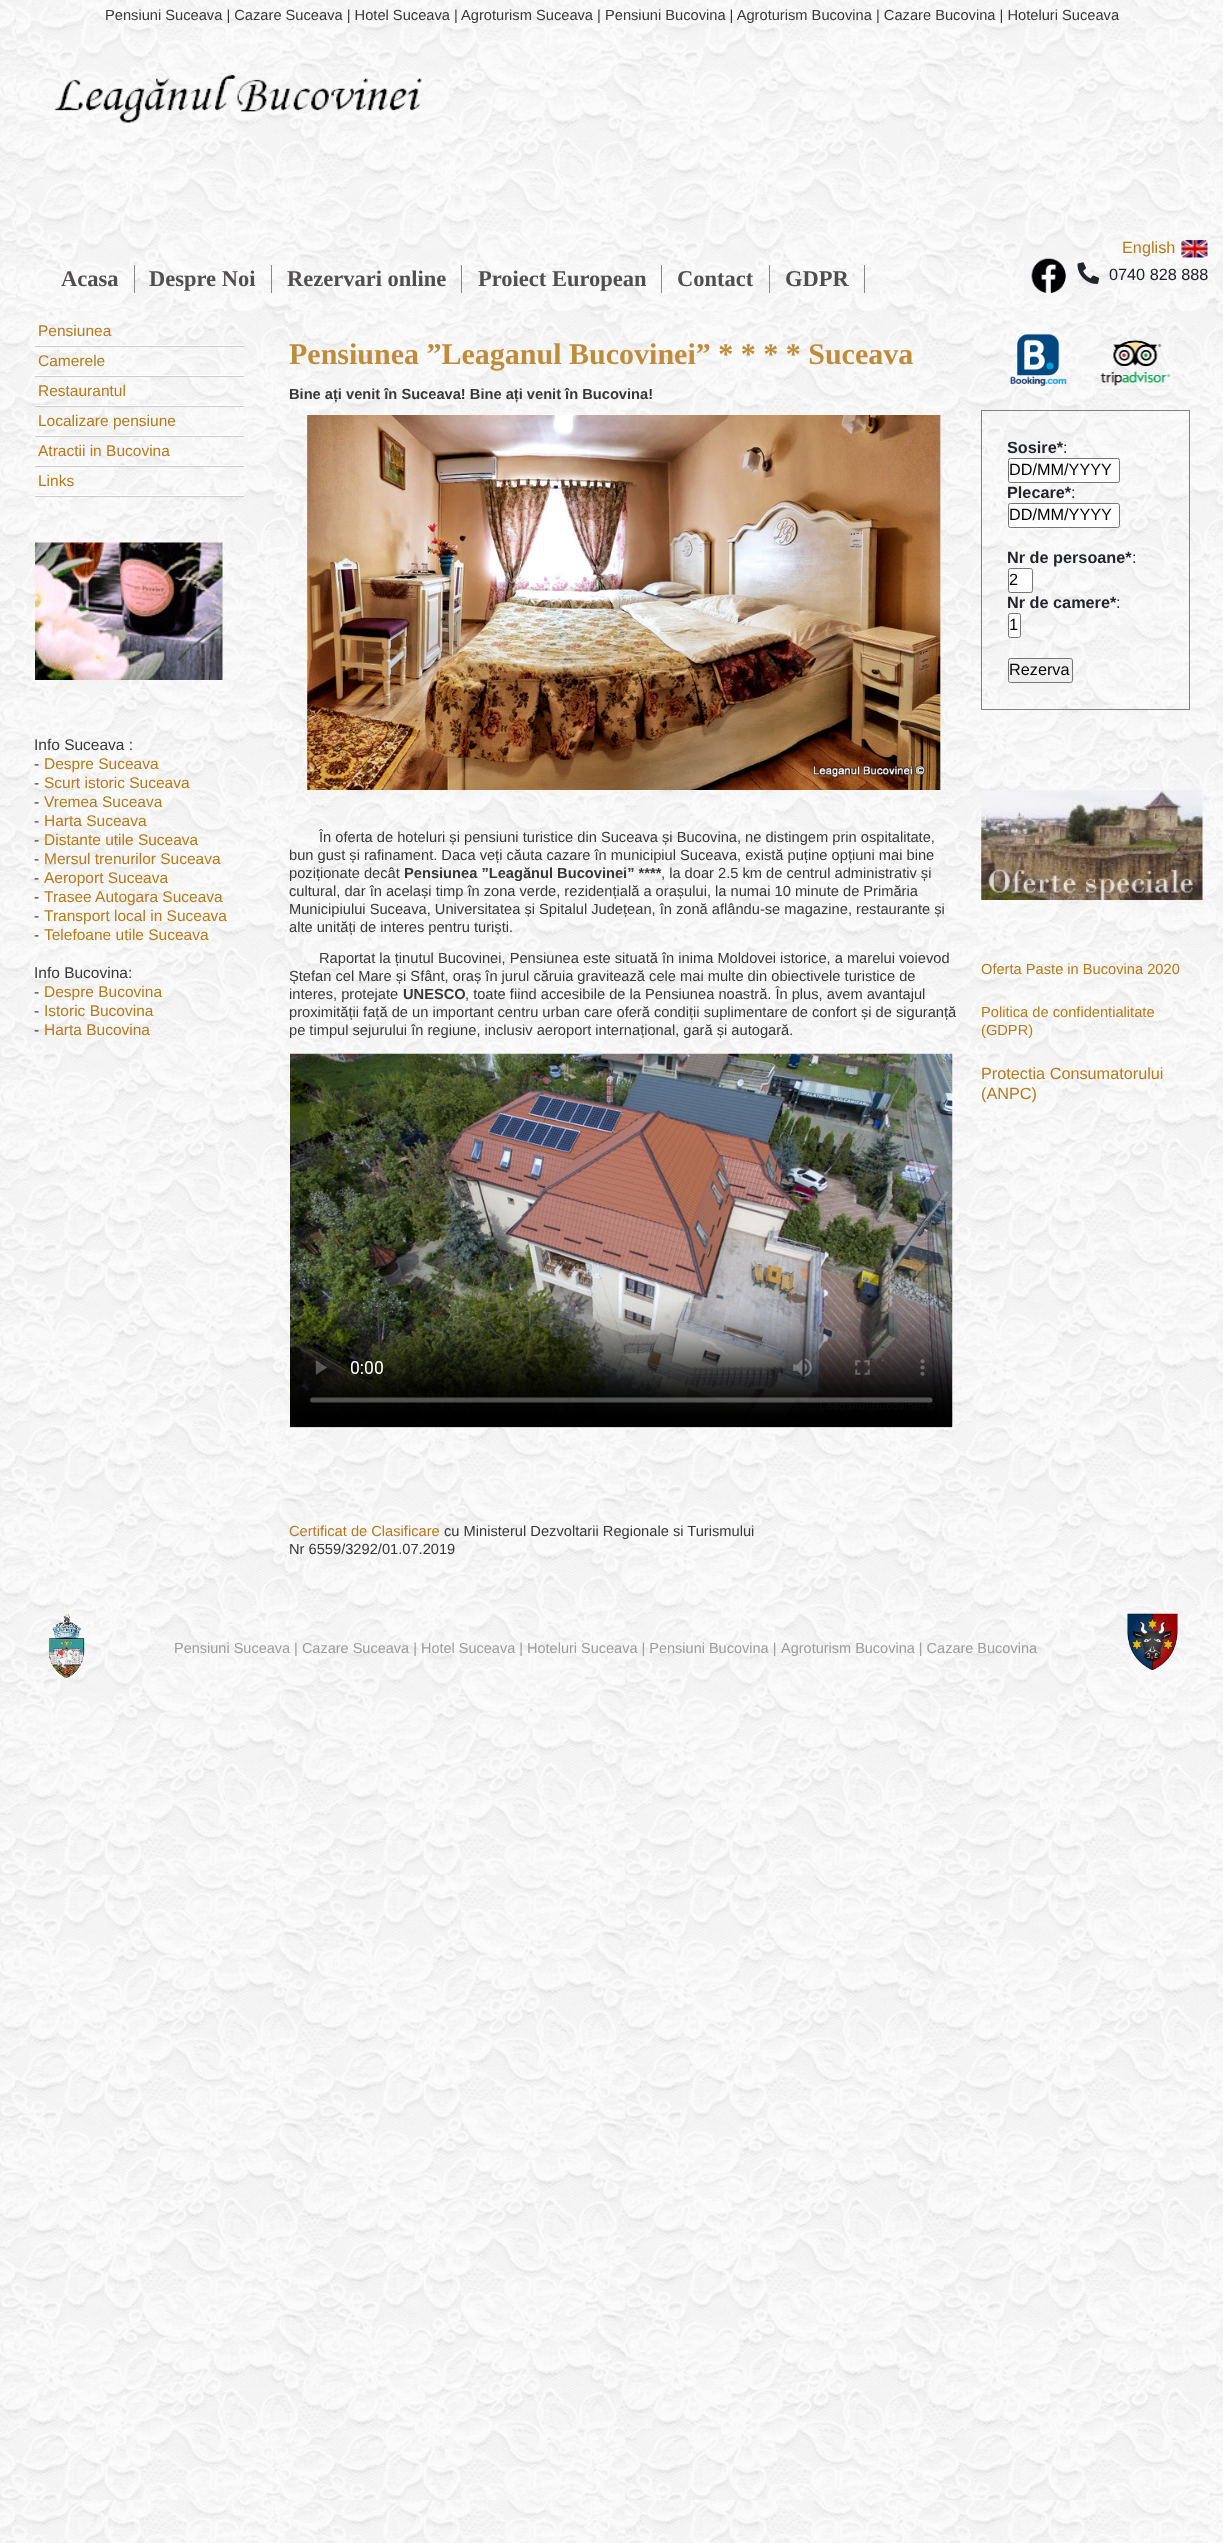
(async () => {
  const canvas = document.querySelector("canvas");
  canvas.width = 1223;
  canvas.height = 2543;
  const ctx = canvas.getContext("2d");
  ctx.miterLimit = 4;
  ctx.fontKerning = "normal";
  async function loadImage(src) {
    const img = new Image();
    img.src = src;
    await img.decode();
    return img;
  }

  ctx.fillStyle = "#ffffff";
  ctx.fillRect(0, 0, 1223, 2543);
  ctx.drawImage(await loadImage("img/1.png"), 0, 0, 1223, 2543);
  ctx.drawImage(await loadImage("img/2.png"), 16, 6, 1193, 306);
  ctx.drawImage(await loadImage("img/3.png"), 54, 74, 368, 49);
  ctx.drawImage(await loadImage("img/4.png"), 1180, 239, 29, 20);
  for (const [x, y, w, h, color] of [
    [134, 265, 1, 28, "#8a8782"],
    [271, 265, 1, 28, "#8a8782"],
    [461, 265, 1, 28, "#8a8782"],
    [661, 265, 1, 28, "#8a8782"],
    [769, 265, 1, 28, "#8a8782"],
    [864, 265, 1, 28, "#8a8782"],
  ]) {
    ctx.fillStyle = color;
    ctx.fillRect(x, y, w, h);
  }
  ctx.drawImage(await loadImage("img/5.png"), 1024, 258, 50, 36);
  ctx.drawImage(await loadImage("img/6.png"), 1077, 262, 23, 22);
  for (const [x, y, w, h, color] of [
    [35, 345, 209, 1, "#ffffff"],
    [35, 346, 209, 1, "#cccccc"],
    [35, 375, 209, 1, "#ffffff"],
    [35, 376, 209, 1, "#cccccc"],
    [35, 405, 209, 1, "#ffffff"],
    [35, 406, 209, 1, "#cccccc"],
    [35, 435, 209, 1, "#ffffff"],
    [35, 436, 209, 1, "#cccccc"],
    [35, 465, 209, 1, "#ffffff"],
    [35, 466, 209, 1, "#cccccc"],
    [35, 495, 209, 1, "#ffffff"],
    [35, 496, 209, 1, "#cccccc"],
  ]) {
    ctx.fillStyle = color;
    ctx.fillRect(x, y, w, h);
  }
  ctx.drawImage(await loadImage("img/7.png"), 35, 542, 188, 138);
  ctx.drawImage(await loadImage("img/8.png"), 307, 415, 634, 375);
  ctx.drawImage(await loadImage("img/9.png"), 290, 1053, 663, 375);
  ctx.drawImage(await loadImage("img/10.png"), 1010, 333, 57, 54);
  ctx.drawImage(await loadImage("img/11.png"), 1098, 340, 74, 50);
  ctx.strokeStyle = "#808080";
  ctx.strokeRect(981.5, 410.5, 208, 299);
  ctx.fillStyle = "#ffffff";
  ctx.beginPath();
  ctx.roundRect(1008.5, 458.5, 111, 24, 2);
  ctx.fill();
  ctx.strokeStyle = "#767676";
  ctx.stroke();
  ctx.beginPath();
  ctx.roundRect(1008.5, 503.5, 111, 24, 2);
  ctx.fill();
  ctx.stroke();
  ctx.beginPath();
  ctx.roundRect(1008.5, 568.5, 24, 24, 2);
  ctx.fill();
  ctx.stroke();
  ctx.beginPath();
  ctx.roundRect(1008.5, 613.5, 12, 24, 2);
  ctx.fill();
  ctx.stroke();
  ctx.fillStyle = "#efefef";
  ctx.beginPath();
  ctx.roundRect(1008.5, 658.5, 64, 24, 2);
  ctx.fill();
  ctx.stroke();
  ctx.drawImage(await loadImage("img/12.png"), 981, 790, 222, 110);
  ctx.drawImage(await loadImage("img/13.png"), 48, 1614, 37, 64);
  ctx.drawImage(await loadImage("img/14.png"), 1127, 1613, 51, 57);
  ctx.font = "14.67px Liberation Sans";
  ctx.fillStyle = "#393737";
  ctx.fillText("Pensiuni Suceava | Cazare Suceava | Hotel Suceava | Agroturism Suceava | Pensiuni Bucovina | Agroturism Bucovina | Cazare Bucovina | Hoteluri Suceava", 105, 20);
  ctx.font = "16.25px Liberation Sans";
  ctx.fillStyle = "#b57a1f";
  ctx.fillText("English", 1122, 253);
  ctx.font = "bold 22.5px Liberation Serif";
  ctx.fillStyle = "#504e4e";
  for (const [text, x, y] of [
    ["Acasa", 61, 286],
    ["Despre Noi", 149, 286],
    ["Rezervari online", 287, 286],
    ["Proiect European", 478, 286],
    ["Contact", 677, 286],
    ["GDPR", 785, 286],
  ]) {
    ctx.fillText(text, x, y);
  }
  ctx.font = "16.25px Liberation Sans";
  ctx.fillStyle = "#212529";
  ctx.fillText("0740 828 888", 1109, 280);
  ctx.font = "15.5px Liberation Sans";
  ctx.fillStyle = "#b57a1f";
  for (const [text, x, y] of [
    ["Pensiunea", 38, 336],
    ["Camerele", 38, 366],
    ["Restaurantul", 38, 396],
    ["Localizare pensiune", 38, 426],
    ["Atractii in Bucovina", 38, 456],
    ["Links", 38, 486],
  ]) {
    ctx.fillText(text, x, y);
  }
  ctx.fillStyle = "#393737";
  ctx.fillText("Info Suceava :", 34, 750);
  ctx.fillText("-", 34, 769);
  ctx.fillStyle = "#b57a1f";
  ctx.fillText("Despre Suceava", 44, 769);
  ctx.fillStyle = "#393737";
  ctx.fillText("-", 34, 788);
  ctx.fillStyle = "#b57a1f";
  ctx.fillText("Scurt istoric Suceava", 44, 788);
  ctx.fillStyle = "#393737";
  ctx.fillText("-", 34, 807);
  ctx.fillStyle = "#b57a1f";
  ctx.fillText("Vremea Suceava", 44, 807);
  ctx.fillStyle = "#393737";
  ctx.fillText("-", 34, 826);
  ctx.fillStyle = "#b57a1f";
  ctx.fillText("Harta Suceava", 44, 826);
  ctx.fillStyle = "#393737";
  ctx.fillText("-", 34, 845);
  ctx.fillStyle = "#b57a1f";
  ctx.fillText("Distante utile Suceava", 44, 845);
  ctx.fillStyle = "#393737";
  ctx.fillText("-", 34, 864);
  ctx.fillStyle = "#b57a1f";
  ctx.fillText("Mersul trenurilor Suceava", 44, 864);
  ctx.fillStyle = "#393737";
  ctx.fillText("-", 34, 883);
  ctx.fillStyle = "#b57a1f";
  ctx.fillText("Aeroport Suceava", 44, 883);
  ctx.fillStyle = "#393737";
  ctx.fillText("-", 34, 902);
  ctx.fillStyle = "#b57a1f";
  ctx.fillText("Trasee Autogara Suceava", 44, 902);
  ctx.fillStyle = "#393737";
  ctx.fillText("-", 34, 921);
  ctx.fillStyle = "#b57a1f";
  ctx.fillText("Transport local in Suceava", 44, 921);
  ctx.fillStyle = "#393737";
  ctx.fillText("-", 34, 940);
  ctx.fillStyle = "#b57a1f";
  ctx.fillText("Telefoane utile Suceava", 44, 940);
  ctx.fillStyle = "#393737";
  ctx.fillText("Info Bucovina:", 34, 978);
  ctx.fillText("-", 34, 997);
  ctx.fillStyle = "#b57a1f";
  ctx.fillText("Despre Bucovina", 44, 997);
  ctx.fillStyle = "#393737";
  ctx.fillText("-", 34, 1016);
  ctx.fillStyle = "#b57a1f";
  ctx.fillText("Istoric Bucovina", 44, 1016);
  ctx.fillStyle = "#393737";
  ctx.fillText("-", 34, 1035);
  ctx.fillStyle = "#b57a1f";
  ctx.fillText("Harta Bucovina", 44, 1035);
  ctx.font = "bold 30px Liberation Serif";
  ctx.fillStyle = "#bf8c3d";
  ctx.fillText("Pensiunea ”Leaganul Bucovinei” * * * * Suceava", 289, 364);
  ctx.font = "bold 14.67px Liberation Sans";
  ctx.fillStyle = "#393737";
  ctx.fillText("Bine ați venit în Suceava! Bine ați venit în Bucovina!", 289, 399);
  ctx.font = "14.67px Liberation Sans";
  for (const [text, x, y] of [
    ["În oferta de hoteluri și pensiuni turistice din Suceava și Bucovina, ne distingem prin ospitalitate,", 319, 842],
    ["bun gust și rafinament. Daca veți căuta cazare în municipiul Suceava, există puține opțiuni mai bine", 289, 860],
    ["poziționate decât", 289, 878],
  ]) {
    ctx.fillText(text, x, y);
  }
  ctx.font = "bold 14.67px Liberation Sans";
  ctx.fillText("Pensiunea ”Leagănul Bucovinei” ****", 404, 878);
  ctx.font = "14.67px Liberation Sans";
  for (const [text, x, y] of [
    [", la doar 2.5 km de centrul administrativ și", 661, 878],
    ["cultural, dar în același timp în zona verde, rezidențială a orașului, la numai 10 minute de Primăria", 289, 896],
    ["Municipiului Suceava, Universitatea și Spitalul Județean, în zonă aflându-se magazine, restaurante și", 289, 914],
    ["alte unități de interes pentru turiști.", 289, 932],
    ["Raportat la ținutul Bucovinei, Pensiunea este situată în inima Moldovei istorice, a marelui voievod", 319, 963],
    ["Ștefan cel Mare și Sfânt, oraș în jurul căruia gravitează cele mai multe din obiectivele turistice de", 289, 981],
    ["interes, protejate", 289, 999],
  ]) {
    ctx.fillText(text, x, y);
  }
  ctx.font = "bold 14.67px Liberation Sans";
  ctx.fillText("UNESCO", 403, 999);
  ctx.font = "14.67px Liberation Sans";
  for (const [text, x, y] of [
    [", toate fiind accesibile de la Pensiunea noastră. În plus, avem avantajul", 465, 999],
    ["proximității față de un important centru urban care oferă condiții suplimentare de confort și de siguranță", 289, 1017],
    ["pe timpul sejurului în regiune, inclusiv aeroport internațional, gară și autogară.", 289, 1035],
  ]) {
    ctx.fillText(text, x, y);
  }
  ctx.fillStyle = "#b57a1f";
  ctx.fillText("Certificat de Clasificare", 289, 1536);
  ctx.fillStyle = "#393737";
  ctx.fillText("cu Ministerul Dezvoltarii Regionale si Turismului", 444, 1536);
  ctx.fillText("Nr 6559/3292/01.07.2019", 289, 1554);
  ctx.font = "bold 16.25px Liberation Sans";
  ctx.fillStyle = "#212529";
  ctx.fillText("Sosire*", 1007, 453);
  ctx.font = "16.25px Liberation Sans";
  ctx.fillText(":", 1063, 453);
  ctx.fillStyle = "#000000";
  ctx.fillText("DD/MM/YYYY", 1009, 475);
  ctx.font = "bold 16.25px Liberation Sans";
  ctx.fillStyle = "#212529";
  ctx.fillText("Plecare*", 1007, 498);
  ctx.font = "16.25px Liberation Sans";
  ctx.fillText(":", 1071, 498);
  ctx.fillStyle = "#000000";
  ctx.fillText("DD/MM/YYYY", 1009, 520);
  ctx.font = "bold 16.25px Liberation Sans";
  ctx.fillStyle = "#212529";
  ctx.fillText("Nr de persoane*", 1007, 563);
  ctx.font = "16.25px Liberation Sans";
  ctx.fillText(":", 1132, 563);
  ctx.fillStyle = "#000000";
  ctx.fillText("2", 1009, 585);
  ctx.font = "bold 16.25px Liberation Sans";
  ctx.fillStyle = "#212529";
  ctx.fillText("Nr de camere*", 1007, 608);
  ctx.font = "16.25px Liberation Sans";
  ctx.fillText(":", 1116, 608);
  ctx.fillStyle = "#000000";
  ctx.fillText("1", 1009, 630);
  ctx.fillText("Rezerva", 1009, 675);
  ctx.font = "14.67px Liberation Sans";
  ctx.fillStyle = "#b57a1f";
  for (const [text, x, y] of [
    ["Oferta Paste in Bucovina 2020", 981, 974],
    ["Politica de confidentialitate", 981, 1017],
    ["(GDPR)", 981, 1035],
  ]) {
    ctx.fillText(text, x, y);
  }
  ctx.font = "16.25px Liberation Sans";
  ctx.fillText("Protectia Consumatorului", 981, 1079);
  ctx.fillText("(ANPC)", 981, 1099);
  ctx.font = "14.5px Liberation Sans";
  ctx.fillStyle = "#9d9c9b";
  ctx.fillText("Pensiuni Suceava | Cazare Suceava | Hotel Suceava | Hoteluri Suceava | Pensiuni Bucovina |", 174, 1653);
  ctx.fillText("Agroturism Bucovina | Cazare Bucovina", 781, 1653);
})();
